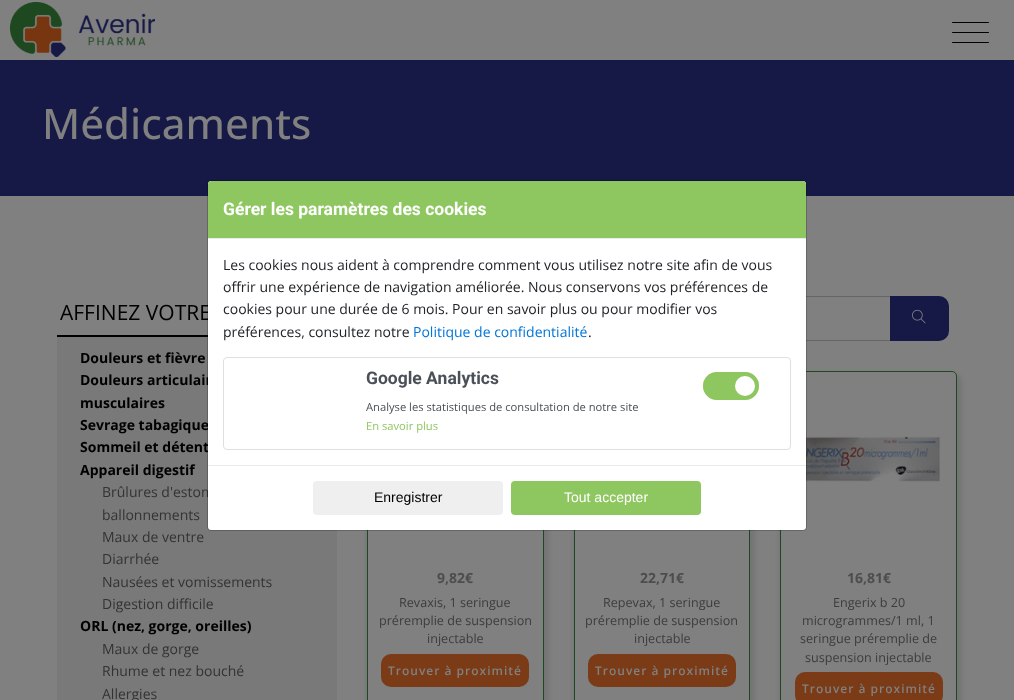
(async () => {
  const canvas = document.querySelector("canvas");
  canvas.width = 1014;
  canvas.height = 700;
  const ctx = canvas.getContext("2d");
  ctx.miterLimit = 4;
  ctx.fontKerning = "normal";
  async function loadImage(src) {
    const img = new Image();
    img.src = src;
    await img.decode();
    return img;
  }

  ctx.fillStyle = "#808080";
  ctx.fillRect(0, 0, 1014, 700);
  ctx.drawImage(await loadImage("img/1.png"), 10, 2, 145, 55);
  ctx.fillStyle = "#000000";
  ctx.beginPath();
  ctx.roundRect(952, 22, 37, 1, 0.5);
  ctx.fill();
  ctx.beginPath();
  ctx.roundRect(952, 32, 37, 1, 0.5);
  ctx.fill();
  ctx.beginPath();
  ctx.roundRect(952, 42, 37, 1, 0.5);
  ctx.fill();
  for (const [x, y, w, h, color] of [
    [0, 60, 1014, 136, "#161946"],
    [57, 337, 280, 363, "#797979"],
    [57, 335, 151, 2, "#000000"],
  ]) {
    ctx.fillStyle = color;
    ctx.fillRect(x, y, w, h);
  }
  ctx.strokeStyle = "#666666";
  ctx.strokeRect(393.5, 296.5, 500, 44);
  ctx.fillStyle = "#161946";
  ctx.beginPath();
  ctx.roundRect(891, 297, 57, 43, [0, 9, 9, 0]);
  ctx.fill();
  ctx.strokeStyle = "#161946";
  ctx.lineWidth = 2;
  ctx.stroke();
  ctx.drawImage(await loadImage("img/2.png"), 912, 309, 14, 15);
  ctx.fillStyle = "rgba(0, 0, 0, 0.09)";
  ctx.filter = "blur(2px)";
  ctx.beginPath();
  ctx.roundRect(366, 374, 183, 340, 8);
  ctx.fill();
  ctx.filter = "none";
  ctx.fillStyle = "#808080";
  ctx.fillRect(368, 530, 175, 170);
  ctx.strokeStyle = "#1e4821";
  ctx.lineWidth = 1;
  ctx.strokeRect(367.5, 371.5, 176, 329);
  ctx.fillStyle = "#7a3b16";
  ctx.beginPath();
  ctx.roundRect(382, 655, 146, 31, 9);
  ctx.fill();
  ctx.strokeStyle = "#7a3b16";
  ctx.lineWidth = 2;
  ctx.stroke();
  ctx.fillStyle = "rgba(0, 0, 0, 0.09)";
  ctx.filter = "blur(2px)";
  ctx.beginPath();
  ctx.roundRect(573, 374, 182, 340, 8);
  ctx.fill();
  ctx.filter = "none";
  ctx.fillStyle = "#808080";
  ctx.fillRect(575, 530, 174, 170);
  ctx.strokeStyle = "#1e4821";
  ctx.lineWidth = 1;
  ctx.strokeRect(574.5, 371.5, 175, 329);
  ctx.fillStyle = "#7a3b16";
  ctx.beginPath();
  ctx.roundRect(589, 655, 146, 31, 9);
  ctx.fill();
  ctx.strokeStyle = "#7a3b16";
  ctx.lineWidth = 2;
  ctx.stroke();
  ctx.fillStyle = "rgba(0, 0, 0, 0.09)";
  ctx.filter = "blur(2px)";
  ctx.beginPath();
  ctx.roundRect(779, 374, 183, 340, 8);
  ctx.fill();
  ctx.filter = "none";
  ctx.fillStyle = "#808080";
  ctx.beginPath();
  ctx.roundRect(780.5, 371.5, 176, 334, 4.5);
  ctx.fill();
  ctx.strokeStyle = "#1e4821";
  ctx.lineWidth = 1;
  ctx.stroke();
  ctx.drawImage(await loadImage("img/3.png"), 806, 436, 134, 46);
  ctx.fillStyle = "#7a3b16";
  ctx.beginPath();
  ctx.roundRect(796, 673, 146, 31, 9);
  ctx.fill();
  ctx.strokeStyle = "#7a3b16";
  ctx.lineWidth = 2;
  ctx.stroke();
  ctx.font = "500 42px Open Sans";
  ctx.fillStyle = "#808080";
  ctx.fillText("Médicaments", 42, 139);
  ctx.font = "21px Open Sans";
  ctx.fillStyle = "#000000";
  ctx.fillText("AFFINEZ VOTRE", 60, 320);
  ctx.font = "bold 14px Open Sans";
  for (const [text, x, y] of [
    ["Douleurs et fièvre", 80, 363],
    ["Douleurs articulair", 80, 385],
    ["musculaires", 80, 408],
    ["Sevrage tabagique", 80, 430],
    ["Sommeil et détent", 80, 452],
    ["Appareil digestif", 80, 475],
  ]) {
    ctx.fillText(text, x, y);
  }
  ctx.font = "14px Open Sans";
  ctx.fillStyle = "#333333";
  for (const [text, x, y] of [
    ["Brûlures d'estom", 102, 497],
    ["ballonnements", 102, 520],
    ["Maux de ventre", 102, 542],
    ["Diarrhée", 102, 564],
    ["Nausées et vomissements", 102, 587],
    ["Digestion difficile", 102, 609],
  ]) {
    ctx.fillText(text, x, y);
  }
  ctx.font = "bold 14px Open Sans";
  ctx.fillStyle = "#000000";
  ctx.fillText("ORL (nez, gorge, oreilles)", 80, 631);
  ctx.font = "14px Open Sans";
  ctx.fillStyle = "#333333";
  for (const [text, x, y] of [
    ["Maux de gorge", 102, 654],
    ["Rhume et nez bouché", 102, 676],
    ["Allergies", 102, 699],
  ]) {
    ctx.fillText(text, x, y);
  }
  ctx.font = "bold 14px Open Sans";
  ctx.fillStyle = "#4d4d4d";
  ctx.fillText("9,82€", 437, 583);
  ctx.font = "12.6px Open Sans";
  ctx.fillStyle = "#3c3c3c";
  for (const [text, x, y] of [
    ["Revaxis, 1 seringue", 399, 607],
    ["préremplie de suspension", 379, 625],
    ["injectable", 427, 643],
  ]) {
    ctx.fillText(text, x, y);
  }
  ctx.letterSpacing = "1px";
  ctx.font = "600 12px Open Sans";
  ctx.fillStyle = "#808080";
  ctx.fillText("Trouver à proximité", 388, 675);
  ctx.letterSpacing = "0px";
  ctx.font = "bold 14px Open Sans";
  ctx.fillStyle = "#4d4d4d";
  ctx.fillText("22,71€", 640, 583);
  ctx.font = "12.6px Open Sans";
  ctx.fillStyle = "#3c3c3c";
  for (const [text, x, y] of [
    ["Repevax, 1 seringue", 603, 607],
    ["préremplie de suspension", 585, 625],
    ["injectable", 634, 643],
  ]) {
    ctx.fillText(text, x, y);
  }
  ctx.letterSpacing = "1px";
  ctx.font = "600 12px Open Sans";
  ctx.fillStyle = "#808080";
  ctx.fillText("Trouver à proximité", 595, 675);
  ctx.letterSpacing = "0px";
  ctx.font = "bold 14px Open Sans";
  ctx.fillStyle = "#4d4d4d";
  ctx.fillText("16,81€", 847, 583);
  ctx.font = "12.6px Open Sans";
  ctx.fillStyle = "#3c3c3c";
  for (const [text, x, y] of [
    ["Engerix b 20", 833, 607],
    ["microgrammes/1 ml, 1", 802, 625],
    ["seringue préremplie de", 800, 643],
    ["suspension injectable", 805, 662],
  ]) {
    ctx.fillText(text, x, y);
  }
  ctx.letterSpacing = "1px";
  ctx.font = "600 12px Open Sans";
  ctx.fillStyle = "#808080";
  ctx.fillText("Trouver à proximité", 802, 693);
  ctx.fillStyle = "#ffffff";
  ctx.beginPath();
  ctx.roundRect(208, 181, 598, 349, 3);
  ctx.fill();
  ctx.beginPath();
  ctx.roundRect(207.5, 180.5, 599, 350, 3.5);
  ctx.strokeStyle = "rgba(0, 0, 0, 0.2)";
  ctx.lineWidth = 1;
  ctx.stroke();
  ctx.fillStyle = "#8ec760";
  ctx.beginPath();
  ctx.roundRect(208, 181, 598, 58, [4, 4, 0, 0]);
  ctx.fill();
  ctx.fillStyle = "#e9ecef";
  ctx.fillRect(208, 238, 598, 1);
  ctx.letterSpacing = "0px";
  ctx.font = "bold 17.5px Roboto";
  ctx.fillStyle = "#ffffff";
  ctx.fillText("Gérer les paramètres des cookies", 223, 215);
  ctx.font = "14px Open Sans";
  ctx.fillStyle = "#212529";
  for (const [text, x, y] of [
    ["Les cookies nous aident à comprendre comment vous utilisez notre site afin de vous", 223, 270],
    ["offrir une expérience de navigation améliorée. Nous conservons vos préférences de", 223, 292],
    ["cookies pour une durée de 6 mois. Pour en savoir plus ou pour modifier vos", 223, 314],
    ["préférences, consultez notre", 223, 337],
  ]) {
    ctx.fillText(text, x, y);
  }
  ctx.fillStyle = "#0275d8";
  ctx.fillText("Politique de confidentialité", 413, 337);
  ctx.fillStyle = "#212529";
  ctx.fillText(".", 588, 337);
  ctx.beginPath();
  ctx.roundRect(223.5, 357.5, 567, 92, 3.5);
  ctx.strokeStyle = "#dfdfdf";
  ctx.stroke();
  ctx.font = "bold 17.5px Roboto";
  ctx.fillStyle = "#495057";
  ctx.fillText("Google Analytics", 366, 384);
  ctx.font = "11.2px Open Sans";
  ctx.fillText("Analyse les statistiques de consultation de notre site", 366, 411);
  ctx.fillStyle = "#8ec760";
  ctx.fillText("En savoir plus", 366, 430);
  ctx.beginPath();
  ctx.roundRect(703, 372, 56, 28, 14);
  ctx.fill();
  ctx.fillStyle = "#ffffff";
  ctx.beginPath();
  ctx.arc(745, 386, 10, 0, Math.PI * 2);
  ctx.fill();
  ctx.beginPath();
  ctx.roundRect(703.5, 372.5, 55, 27, 13.5);
  ctx.strokeStyle = "rgba(142, 199, 96, 0.7)";
  ctx.stroke();
  ctx.fillStyle = "#e9ecef";
  ctx.fillRect(208, 465, 598, 1);
  ctx.fillStyle = "#efefef";
  ctx.beginPath();
  ctx.roundRect(313, 481, 190, 34, 4);
  ctx.fill();
  ctx.font = "14px Liberation Sans";
  ctx.fillStyle = "#000000";
  ctx.fillText("Enregistrer", 374, 502);
  ctx.fillStyle = "#8ec760";
  ctx.beginPath();
  ctx.roundRect(511, 481, 190, 34, 4);
  ctx.fill();
  ctx.fillStyle = "#ffffff";
  ctx.fillText("Tout accepter", 564, 502);
})();
